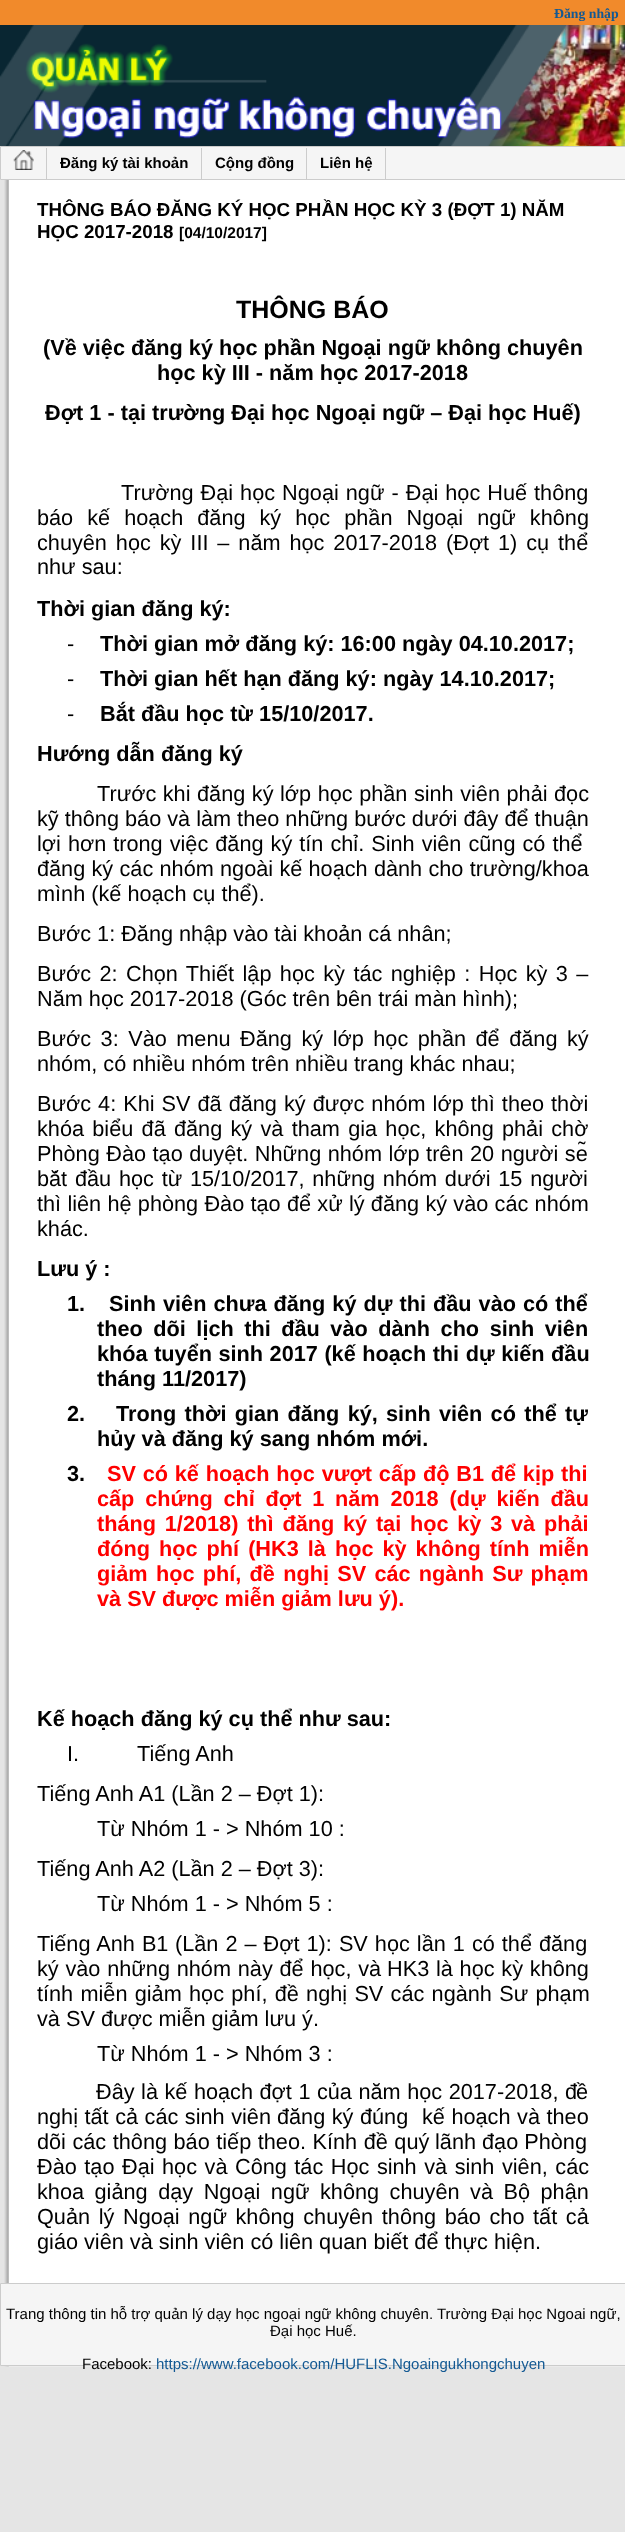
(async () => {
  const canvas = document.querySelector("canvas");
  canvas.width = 625;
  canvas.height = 2532;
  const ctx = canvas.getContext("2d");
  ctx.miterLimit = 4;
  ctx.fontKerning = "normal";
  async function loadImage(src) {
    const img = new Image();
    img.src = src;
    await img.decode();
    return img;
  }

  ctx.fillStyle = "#e5e5e5";
  ctx.fillRect(0, 0, 625, 2532);
  ctx.drawImage(await loadImage("img/1.png"), 4, 180, 621, 2187);
  ctx.fillStyle = "#f18a2b";
  ctx.fillRect(0, 0, 625, 25);
  ctx.drawImage(await loadImage("img/2.png"), 0, 25, 625, 121);
  ctx.fillStyle = "#f5f5f5";
  ctx.beginPath();
  ctx.rect(0.5, 146.5, 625, 33);
  ctx.fill();
  ctx.strokeStyle = "#cccccc";
  ctx.stroke();
  ctx.fillStyle = "#cccccc";
  ctx.fillRect(46, 148, 1, 31);
  ctx.drawImage(await loadImage("img/3.png"), 13, 150, 21, 20);
  for (const [x, y, w, h, color] of [
    [201, 148, 1, 31, "#cccccc"],
    [306, 148, 1, 31, "#cccccc"],
    [385, 148, 1, 31, "#cccccc"],
  ]) {
    ctx.fillStyle = color;
    ctx.fillRect(x, y, w, h);
  }
  ctx.fillStyle = "#f5f5f5";
  ctx.beginPath();
  ctx.rect(0.5, 2283.5, 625, 82);
  ctx.fill();
  ctx.stroke();
  ctx.font = "bold 13.75px Liberation Serif";
  ctx.fillStyle = "#135993";
  ctx.fillText("Đăng nhập", 554, 18);
  ctx.font = "bold 15px Liberation Sans";
  ctx.fillStyle = "#000000";
  for (const [text, x, y] of [
    ["Đăng ký tài khoản", 60, 168],
    ["Cộng đồng", 215, 168],
    ["Liên hệ", 320, 168],
  ]) {
    ctx.fillText(text, x, y);
  }
  ctx.font = "bold 18.75px Liberation Sans";
  ctx.fillText("THÔNG BÁO ĐĂNG KÝ HỌC PHẦN HỌC KỲ 3 (ĐỢT 1) NĂM", 37, 216);
  ctx.fillText("HỌC 2017-2018", 37, 238);
  ctx.font = "bold 15.5px Liberation Sans";
  ctx.fillText("[04/10/2017]", 179, 238);
  ctx.font = "bold 25px Liberation Sans";
  ctx.fillText("THÔNG BÁO", 236, 318);
  ctx.font = "bold 21.7px Liberation Sans";
  for (const [text, x, y] of [
    ["(Về việc đăng ký học phần Ngoại ngữ không chuyên", 43, 355],
    ["học kỳ III - năm học 2017-2018", 157, 380],
    ["Đợt 1 - tại trường Đại học Ngoại ngữ – Đại học Huế)", 45, 420],
  ]) {
    ctx.fillText(text, x, y);
  }
  ctx.wordSpacing = "1px";
  ctx.font = "21.7px Liberation Sans";
  ctx.fillText("Trường Đại học Ngoại ngữ - Đại học Huế thông", 121, 500);
  ctx.wordSpacing = "8px";
  ctx.fillText("báo kế hoạch đăng ký học phần Ngoại ngữ không", 37, 525);
  ctx.wordSpacing = "2.9px";
  ctx.fillText("chuyên học kỳ III – năm học 2017-2018 (Đợt 1) cụ thể", 37, 550);
  ctx.wordSpacing = "0px";
  ctx.fillText("như sau:", 37, 574);
  ctx.font = "bold 21.7px Liberation Sans";
  ctx.fillText("Thời gian đăng ký:", 37, 616);
  ctx.font = "21.7px Liberation Sans";
  ctx.fillText("-", 67, 651);
  ctx.font = "bold 21.7px Liberation Sans";
  ctx.fillText("Thời gian mở đăng ký: 16:00 ngày 04.10.2017;", 100, 651);
  ctx.font = "21.7px Liberation Sans";
  ctx.fillText("-", 67, 686);
  ctx.font = "bold 21.7px Liberation Sans";
  ctx.fillText("Thời gian hết hạn đăng ký: ngày 14.10.2017;", 100, 686);
  ctx.font = "21.7px Liberation Sans";
  ctx.fillText("-", 67, 721);
  ctx.font = "bold 21.7px Liberation Sans";
  ctx.fillText("Bắt đầu học từ 15/10/2017.", 100, 721);
  ctx.fillText("Hướng dẫn đăng ký", 37, 761);
  ctx.wordSpacing = "0.5px";
  ctx.font = "21.7px Liberation Sans";
  ctx.fillText("Trước khi đăng ký lớp học phần sinh viên phải đọc", 97, 801);
  ctx.wordSpacing = "0px";
  ctx.fillText("kỹ thông báo và làm theo những bước dưới đây để thuận", 37, 826);
  ctx.wordSpacing = "1px";
  ctx.fillText("lợi hơn trong việc đăng ký tín chỉ. Sinh viên cũng có thể", 37, 851);
  ctx.wordSpacing = "0.25px";
  ctx.fillText("đăng ký các nhóm ngoài kế hoạch dành cho trường/khoa", 37, 876);
  ctx.wordSpacing = "0px";
  ctx.fillText("mình (kế hoạch cụ thể).", 37, 901);
  ctx.fillText("Bước 1: Đăng nhập vào tài khoản cá nhân;", 37, 941);
  ctx.wordSpacing = "2.4px";
  ctx.fillText("Bước 2: Chọn Thiết lập học kỳ tác nghiệp : Học kỳ 3 –", 37, 981);
  ctx.wordSpacing = "0px";
  ctx.fillText("Năm học 2017-2018 (Góc trên bên trái màn hình);", 37, 1006);
  ctx.wordSpacing = "3.5px";
  ctx.fillText("Bước 3: Vào menu Đăng ký lớp học phần để đăng ký", 37, 1046);
  ctx.wordSpacing = "0px";
  ctx.fillText("nhóm, có nhiều nhóm trên nhiều trang khác nhau;", 37, 1071);
  ctx.wordSpacing = "1px";
  ctx.fillText("Bước 4: Khi SV đã đăng ký được nhóm lớp thì theo thời", 37, 1111);
  ctx.wordSpacing = "2.25px";
  ctx.fillText("khóa biểu đã đăng ký và tham gia học, không phải chờ", 37, 1136);
  ctx.wordSpacing = "0.5px";
  ctx.fillText("Phòng Đào tạo duyệt. Những nhóm lớp trên 20 người sẽ", 37, 1161);
  ctx.wordSpacing = "1.75px";
  ctx.fillText("bắt đầu học từ 15/10/2017, những nhóm dưới 15 người", 37, 1186);
  ctx.wordSpacing = "0.25px";
  ctx.fillText("thì liên hệ phòng Đào tạo để xử lý đăng ký vào các nhóm", 37, 1211);
  ctx.wordSpacing = "0px";
  ctx.fillText("khác.", 37, 1236);
  ctx.font = "bold 21.7px Liberation Sans";
  ctx.fillText("Lưu ý :", 37, 1276);
  ctx.fillText("1.", 67, 1311);
  ctx.wordSpacing = "1px";
  ctx.fillText("Sinh viên chưa đăng ký dự thi đầu vào có thể", 109, 1311);
  ctx.wordSpacing = "4.5px";
  ctx.fillText("theo dõi lịch thi đầu vào dành cho sinh viên", 97, 1336);
  ctx.wordSpacing = "0.5px";
  ctx.fillText("khóa tuyển sinh 2017 (kế hoạch thi dự kiến đầu", 97, 1361);
  ctx.wordSpacing = "0px";
  ctx.fillText("tháng 11/2017)", 97, 1386);
  ctx.fillText("2.", 67, 1421);
  ctx.wordSpacing = "2.25px";
  ctx.fillText("Trong thời gian đăng ký, sinh viên có thể tự", 116, 1421);
  ctx.wordSpacing = "0px";
  ctx.fillText("hủy và đăng ký sang nhóm mới.", 97, 1446);
  ctx.fillText("3.", 67, 1481);
  ctx.wordSpacing = "0.75px";
  ctx.fillStyle = "#ff0000";
  ctx.fillText("SV có kế hoạch học vượt cấp độ B1 để kịp thi", 107, 1481);
  ctx.wordSpacing = "4.75px";
  ctx.fillText("cấp chứng chỉ đợt 1 năm 2018 (dự kiến đầu", 97, 1506);
  ctx.wordSpacing = "2.75px";
  ctx.fillText("tháng 1/2018) thì đăng ký tại học kỳ 3 và phải", 97, 1531);
  ctx.wordSpacing = "3px";
  ctx.fillText("đóng học phí (HK3 là học kỳ không tính miễn", 97, 1556);
  ctx.wordSpacing = "2.25px";
  ctx.fillText("giảm học phí, đề nghị SV các ngành Sư phạm", 97, 1581);
  ctx.wordSpacing = "0px";
  ctx.fillText("và SV được miễn giảm lưu ý).", 97, 1606);
  ctx.fillStyle = "#000000";
  ctx.fillText("Kế hoạch đăng ký cụ thể như sau:", 37, 1726);
  ctx.font = "21.7px Liberation Sans";
  for (const [text, x, y] of [
    ["I.", 67, 1761],
    ["Tiếng Anh", 137, 1761],
    ["Tiếng Anh A1 (Lần 2 – Đợt 1):", 37, 1801],
    ["Từ Nhóm 1 - > Nhóm 10 :", 97, 1836],
    ["Tiếng Anh A2 (Lần 2 – Đợt 3):", 37, 1876],
    ["Từ Nhóm 1 - > Nhóm 5 :", 97, 1911],
  ]) {
    ctx.fillText(text, x, y);
  }
  ctx.wordSpacing = "1px";
  ctx.fillText("Tiếng Anh B1", 37, 1951);
  ctx.fillText("(Lần 2 – Đợt 1): SV học lần 1 có thể đăng", 175, 1951);
  ctx.wordSpacing = "0.75px";
  ctx.fillText("ký vào những nhóm này để học, và", 37, 1976);
  ctx.fillText("HK3 là học kỳ không", 387, 1976);
  ctx.wordSpacing = "1.25px";
  ctx.fillText("tính miễn giảm học phí, đề nghị SV các ngành Sư phạm", 37, 2001);
  ctx.wordSpacing = "0px";
  ctx.fillText("và SV được miễn giảm lưu ý.", 37, 2026);
  ctx.fillText("Từ Nhóm 1 - > Nhóm 3 :", 97, 2061);
  ctx.wordSpacing = "0.5px";
  ctx.fillText("Đây là kế hoạch đợt 1 của năm học 2017-2018, đ", 96, 2099);
  ctx.wordSpacing = "0px";
  ctx.fillText("ề", 576, 2099);
  ctx.wordSpacing = "0.5px";
  for (const [text, x, y] of [
    ["nghị tất cả các sinh viên", 37, 2124],
    ["đăng ký đúng", 277, 2124],
    ["kế hoạch và theo", 422, 2124],
    ["dõi các thông báo tiếp theo", 37, 2149],
    [". Kính đề quý", 300, 2149],
  ]) {
    ctx.fillText(text, x, y);
  }
  ctx.wordSpacing = "0px";
  ctx.fillText("lãnh đạo Phòng", 435, 2149);
  ctx.wordSpacing = "1.5px";
  ctx.fillText("Đào tạo Đại học và Công tác Học sinh và sinh viên, các", 37, 2174);
  ctx.wordSpacing = "4.5px";
  ctx.fillText("khoa giảng dạy Ngoại ngữ không chuyên và Bộ phận", 37, 2199);
  ctx.wordSpacing = "2.6px";
  ctx.fillText("Quản lý Ngoại ngữ không chuyên thông báo cho tất cả", 37, 2224);
  ctx.wordSpacing = "0px";
  ctx.fillText("giáo viên và sinh viên có liên quan biết để thực hiện.", 37, 2249);
  ctx.font = "15px Liberation Sans";
  for (const [text, x, y] of [
    ["Trang thông tin hỗ trợ quản lý dạy học ngoại ngữ không chuyên. Trường Đại học Ngoai ngữ,", 6, 2319],
    ["Đại học Huế.", 270, 2336],
    ["Facebook:", 82, 2369],
  ]) {
    ctx.fillText(text, x, y);
  }
  ctx.fillStyle = "#135993";
  ctx.fillText("https://www.facebook.com/HUFLIS.Ngoaingukhongchuyen", 156, 2369);
})();
